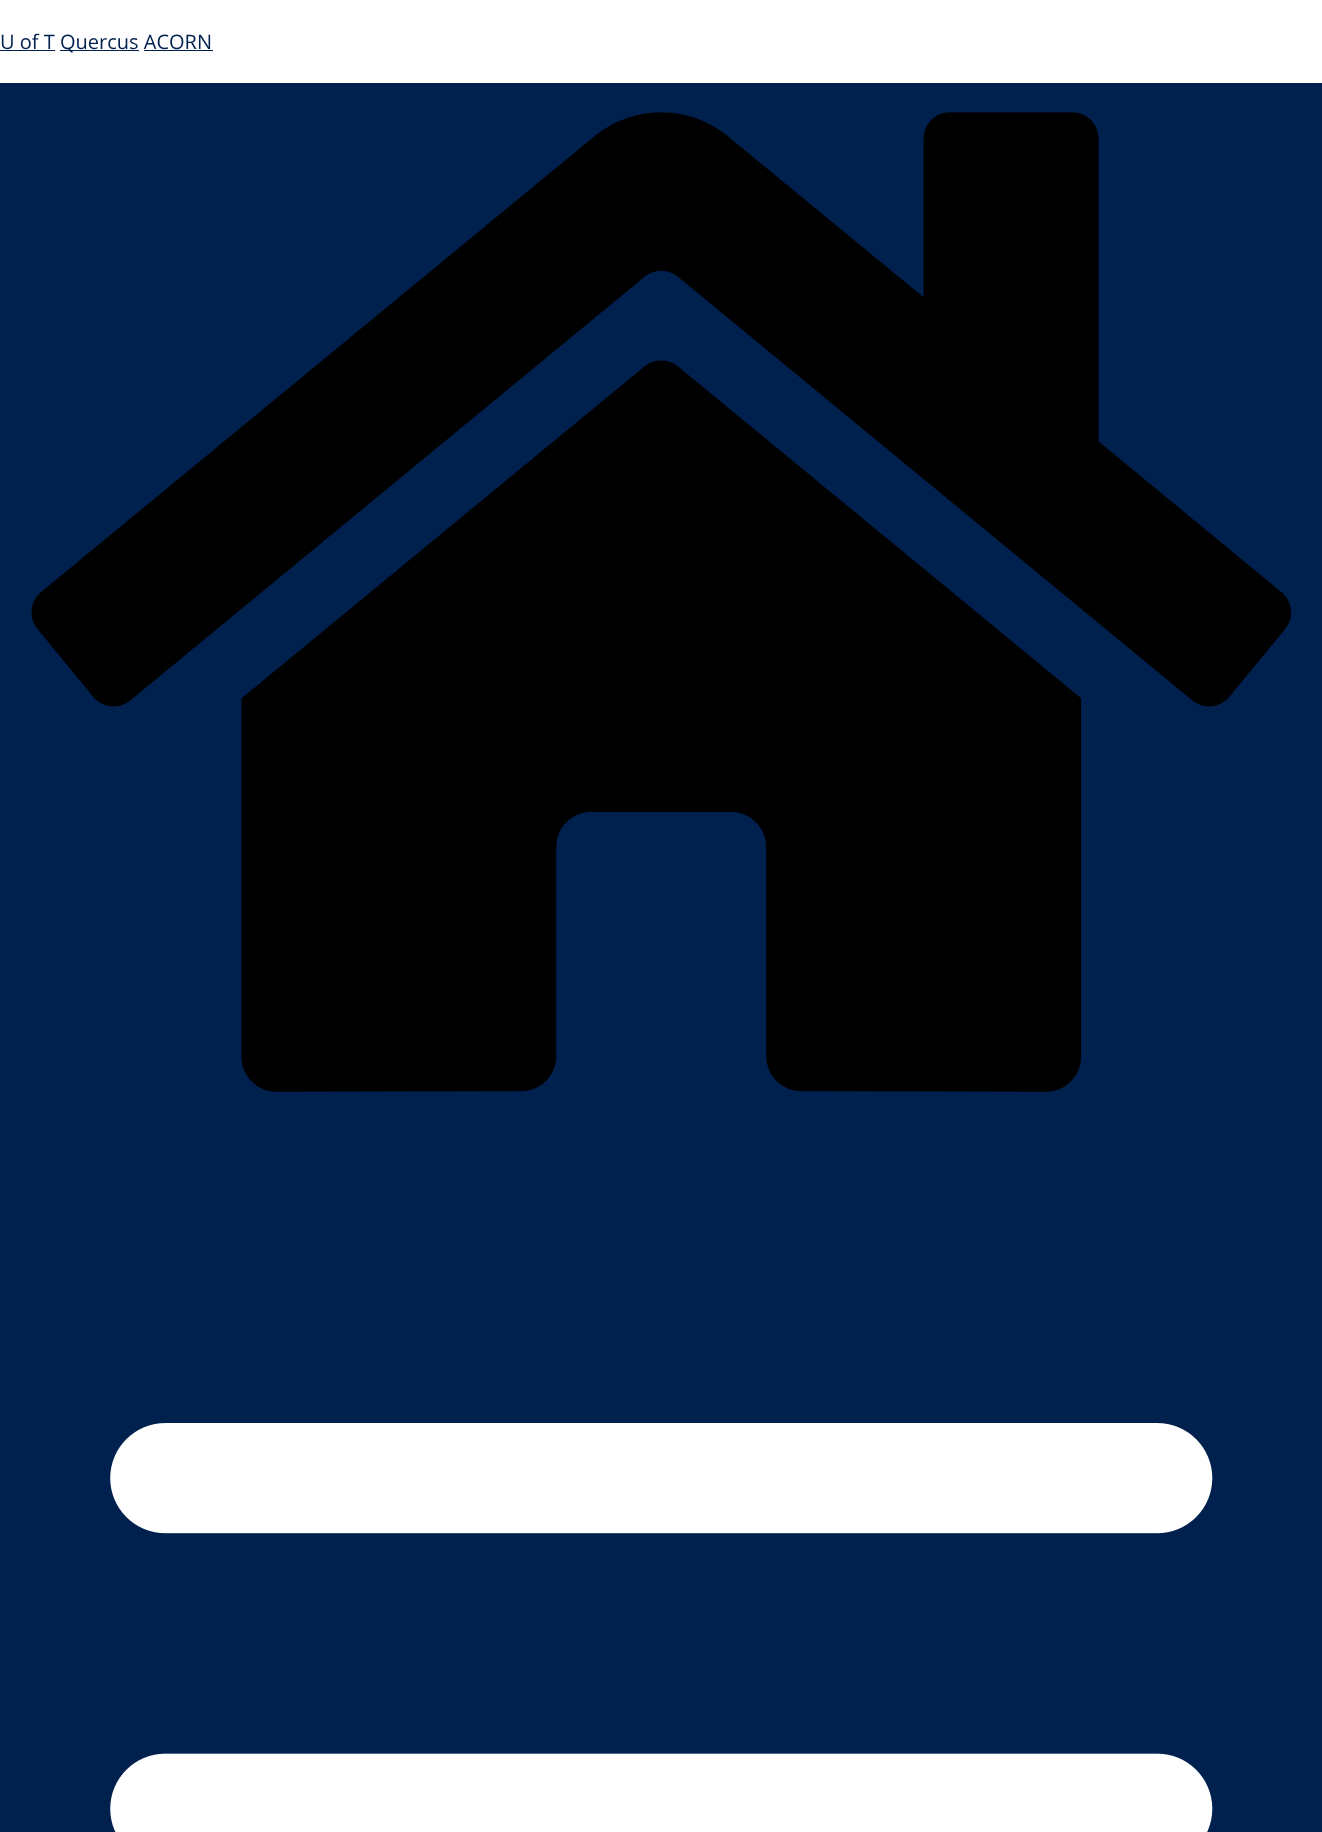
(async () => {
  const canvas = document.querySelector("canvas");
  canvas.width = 1322;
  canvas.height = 1832;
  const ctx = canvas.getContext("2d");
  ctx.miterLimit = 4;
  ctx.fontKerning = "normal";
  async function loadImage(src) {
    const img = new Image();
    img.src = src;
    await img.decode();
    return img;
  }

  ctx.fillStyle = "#ffffff";
  ctx.fillRect(0, 0, 1322, 1832);
  for (const [x, y, w, h, color] of [
    [0, 50, 55, 1, "#00204e"],
    [60, 50, 79, 1, "#00204e"],
    [144, 50, 69, 1, "#00204e"],
    [0, 83, 1322, 1749, "#00204e"],
  ]) {
    ctx.fillStyle = color;
    ctx.fillRect(x, y, w, h);
  }
  ctx.drawImage(await loadImage("img/1.png"), 31, 112, 1260, 980);
  ctx.drawImage(await loadImage("img/2.png"), 110, 1423, 1103, 409);
  ctx.font = "20px Open Sans";
  ctx.fillText("U of T", 0, 49);
  ctx.fillText("Quercus ACORN", 60, 49);
})();
